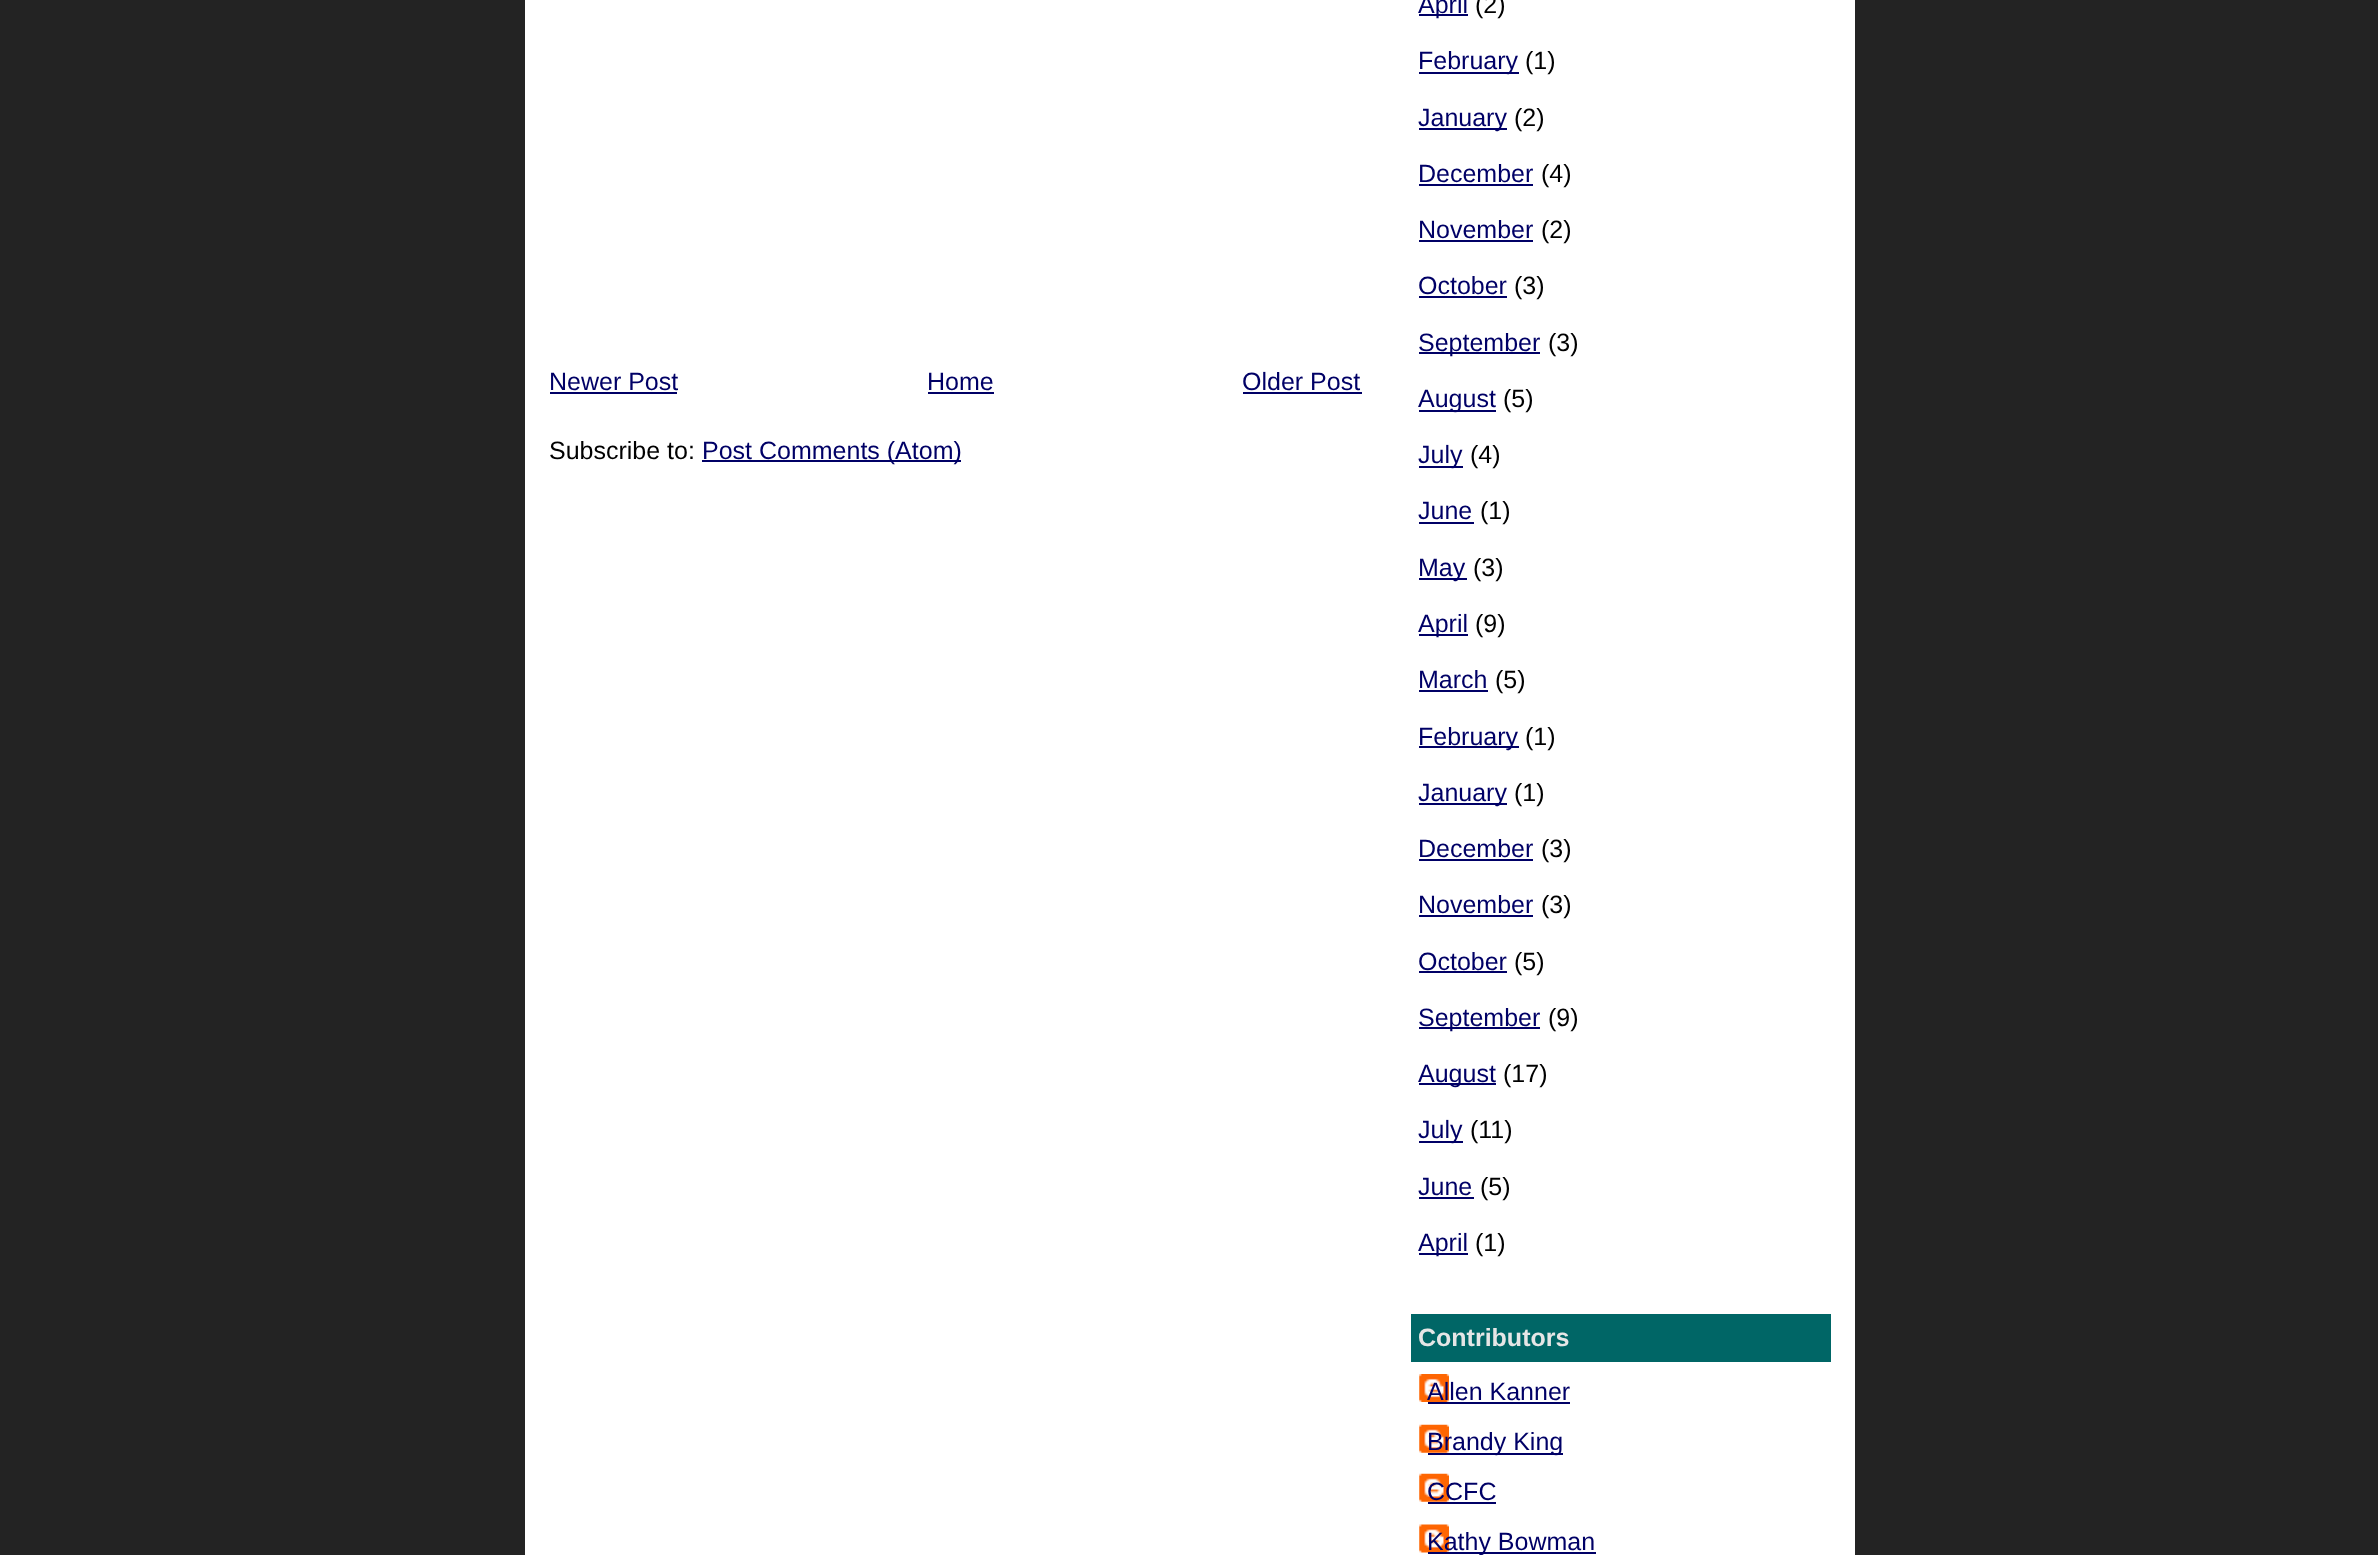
(async () => {
  const canvas = document.querySelector("canvas");
  canvas.width = 2378;
  canvas.height = 1555;
  const ctx = canvas.getContext("2d");
  ctx.miterLimit = 4;
  ctx.fontKerning = "normal";
  async function loadImage(src) {
    const img = new Image();
    img.src = src;
    await img.decode();
    return img;
  }

  ctx.fillStyle = "#232323";
  ctx.fillRect(0, 0, 2378, 1555);
  for (const [x, y, w, h, color] of [
    [525, 0, 1330, 1555, "#ffffff"],
    [550, 392, 127, 2, "#000066"],
    [928, 392, 66, 2, "#000066"],
    [1243, 392, 119, 2, "#000066"],
    [702, 460, 259, 2, "#000066"],
    [1419, 14, 49, 2, "#000066"],
    [1419, 72, 100, 2, "#000066"],
    [1419, 128, 88, 2, "#000066"],
    [1419, 184, 114, 2, "#000066"],
    [1419, 240, 114, 2, "#000066"],
    [1419, 296, 88, 2, "#000066"],
    [1419, 352, 121, 2, "#000066"],
    [1419, 410, 77, 2, "#000066"],
    [1419, 466, 44, 2, "#000066"],
    [1419, 522, 55, 2, "#000066"],
    [1419, 578, 48, 2, "#000066"],
    [1419, 634, 49, 2, "#000066"],
    [1419, 690, 69, 2, "#000066"],
    [1419, 746, 100, 2, "#000066"],
    [1419, 803, 88, 2, "#000066"],
    [1419, 859, 114, 2, "#000066"],
    [1419, 915, 114, 2, "#000066"],
    [1419, 971, 88, 2, "#000066"],
    [1419, 1027, 121, 2, "#000066"],
    [1419, 1083, 77, 2, "#000066"],
    [1419, 1141, 44, 2, "#000066"],
    [1419, 1197, 55, 2, "#000066"],
    [1419, 1253, 49, 2, "#000066"],
    [1411, 1314, 420, 48, "#006666"],
  ]) {
    ctx.fillStyle = color;
    ctx.fillRect(x, y, w, h);
  }
  ctx.drawImage(await loadImage("img/1.png"), 1419, 1374, 30, 28);
  ctx.fillStyle = "#000066";
  ctx.fillRect(1428, 1402, 142, 2);
  ctx.drawImage(await loadImage("img/2.png"), 1419, 1424, 30, 29);
  ctx.fillRect(1428, 1453, 135, 2);
  ctx.drawImage(await loadImage("img/2.png"), 1419, 1473, 30, 29);
  ctx.fillRect(1428, 1502, 68, 2);
  ctx.drawImage(await loadImage("img/3.png"), 1419, 1524, 30, 29);
  ctx.fillRect(1428, 1552, 168, 2);
  ctx.font = "25px Liberation Sans";
  for (const [text, x, y] of [
    ["Newer Post", 549, 390],
    ["Home", 927, 390],
    ["Older Post", 1242, 390],
  ]) {
    ctx.fillText(text, x, y);
  }
  ctx.fillStyle = "#000000";
  ctx.fillText("Subscribe to:", 549, 459);
  ctx.fillStyle = "#000066";
  ctx.fillText("Post Comments (Atom)", 702, 459);
  ctx.fillText("April", 1418, 13);
  ctx.fillStyle = "#000000";
  ctx.fillText("(2)", 1475, 13);
  ctx.fillStyle = "#000066";
  ctx.fillText("February", 1418, 69);
  ctx.fillStyle = "#000000";
  ctx.fillText("(1)", 1525, 69);
  ctx.fillStyle = "#000066";
  ctx.fillText("January", 1418, 126);
  ctx.fillStyle = "#000000";
  ctx.fillText("(2)", 1514, 126);
  ctx.fillStyle = "#000066";
  ctx.fillText("December", 1418, 182);
  ctx.fillStyle = "#000000";
  ctx.fillText("(4)", 1541, 182);
  ctx.fillStyle = "#000066";
  ctx.fillText("November", 1418, 238);
  ctx.fillStyle = "#000000";
  ctx.fillText("(2)", 1541, 238);
  ctx.fillStyle = "#000066";
  ctx.fillText("October", 1418, 294);
  ctx.fillStyle = "#000000";
  ctx.fillText("(3)", 1514, 294);
  ctx.fillStyle = "#000066";
  ctx.fillText("September", 1418, 351);
  ctx.fillStyle = "#000000";
  ctx.fillText("(3)", 1548, 351);
  ctx.fillStyle = "#000066";
  ctx.fillText("August", 1418, 407);
  ctx.fillStyle = "#000000";
  ctx.fillText("(5)", 1503, 407);
  ctx.fillStyle = "#000066";
  ctx.fillText("July", 1418, 463);
  ctx.fillStyle = "#000000";
  ctx.fillText("(4)", 1470, 463);
  ctx.fillStyle = "#000066";
  ctx.fillText("June", 1418, 519);
  ctx.fillStyle = "#000000";
  ctx.fillText("(1)", 1480, 519);
  ctx.fillStyle = "#000066";
  ctx.fillText("May", 1418, 576);
  ctx.fillStyle = "#000000";
  ctx.fillText("(3)", 1473, 576);
  ctx.fillStyle = "#000066";
  ctx.fillText("April", 1418, 632);
  ctx.fillStyle = "#000000";
  ctx.fillText("(9)", 1475, 632);
  ctx.fillStyle = "#000066";
  ctx.fillText("March", 1418, 688);
  ctx.fillStyle = "#000000";
  ctx.fillText("(5)", 1495, 688);
  ctx.fillStyle = "#000066";
  ctx.fillText("February", 1418, 745);
  ctx.fillStyle = "#000000";
  ctx.fillText("(1)", 1525, 745);
  ctx.fillStyle = "#000066";
  ctx.fillText("January", 1418, 801);
  ctx.fillStyle = "#000000";
  ctx.fillText("(1)", 1514, 801);
  ctx.fillStyle = "#000066";
  ctx.fillText("December", 1418, 857);
  ctx.fillStyle = "#000000";
  ctx.fillText("(3)", 1541, 857);
  ctx.fillStyle = "#000066";
  ctx.fillText("November", 1418, 913);
  ctx.fillStyle = "#000000";
  ctx.fillText("(3)", 1541, 913);
  ctx.fillStyle = "#000066";
  ctx.fillText("October", 1418, 970);
  ctx.fillStyle = "#000000";
  ctx.fillText("(5)", 1514, 970);
  ctx.fillStyle = "#000066";
  ctx.fillText("September", 1418, 1026);
  ctx.fillStyle = "#000000";
  ctx.fillText("(9)", 1548, 1026);
  ctx.fillStyle = "#000066";
  ctx.fillText("August", 1418, 1082);
  ctx.fillStyle = "#000000";
  ctx.fillText("(17)", 1503, 1082);
  ctx.fillStyle = "#000066";
  ctx.fillText("July", 1418, 1138);
  ctx.fillStyle = "#000000";
  ctx.fillText("(11)", 1470, 1138);
  ctx.fillStyle = "#000066";
  ctx.fillText("June", 1418, 1195);
  ctx.fillStyle = "#000000";
  ctx.fillText("(5)", 1480, 1195);
  ctx.fillStyle = "#000066";
  ctx.fillText("April", 1418, 1251);
  ctx.fillStyle = "#000000";
  ctx.fillText("(1)", 1475, 1251);
  ctx.font = "bold 25px Liberation Sans";
  ctx.fillStyle = "#e6e6e6";
  ctx.fillText("Contributors", 1418, 1346);
  ctx.font = "25px Liberation Sans";
  ctx.fillStyle = "#000066";
  for (const [text, x, y] of [
    ["Allen Kanner", 1427, 1400],
    ["Brandy King", 1427, 1450],
    ["CCFC", 1427, 1500],
    ["Kathy Bowman", 1427, 1550],
  ]) {
    ctx.fillText(text, x, y);
  }
})();
